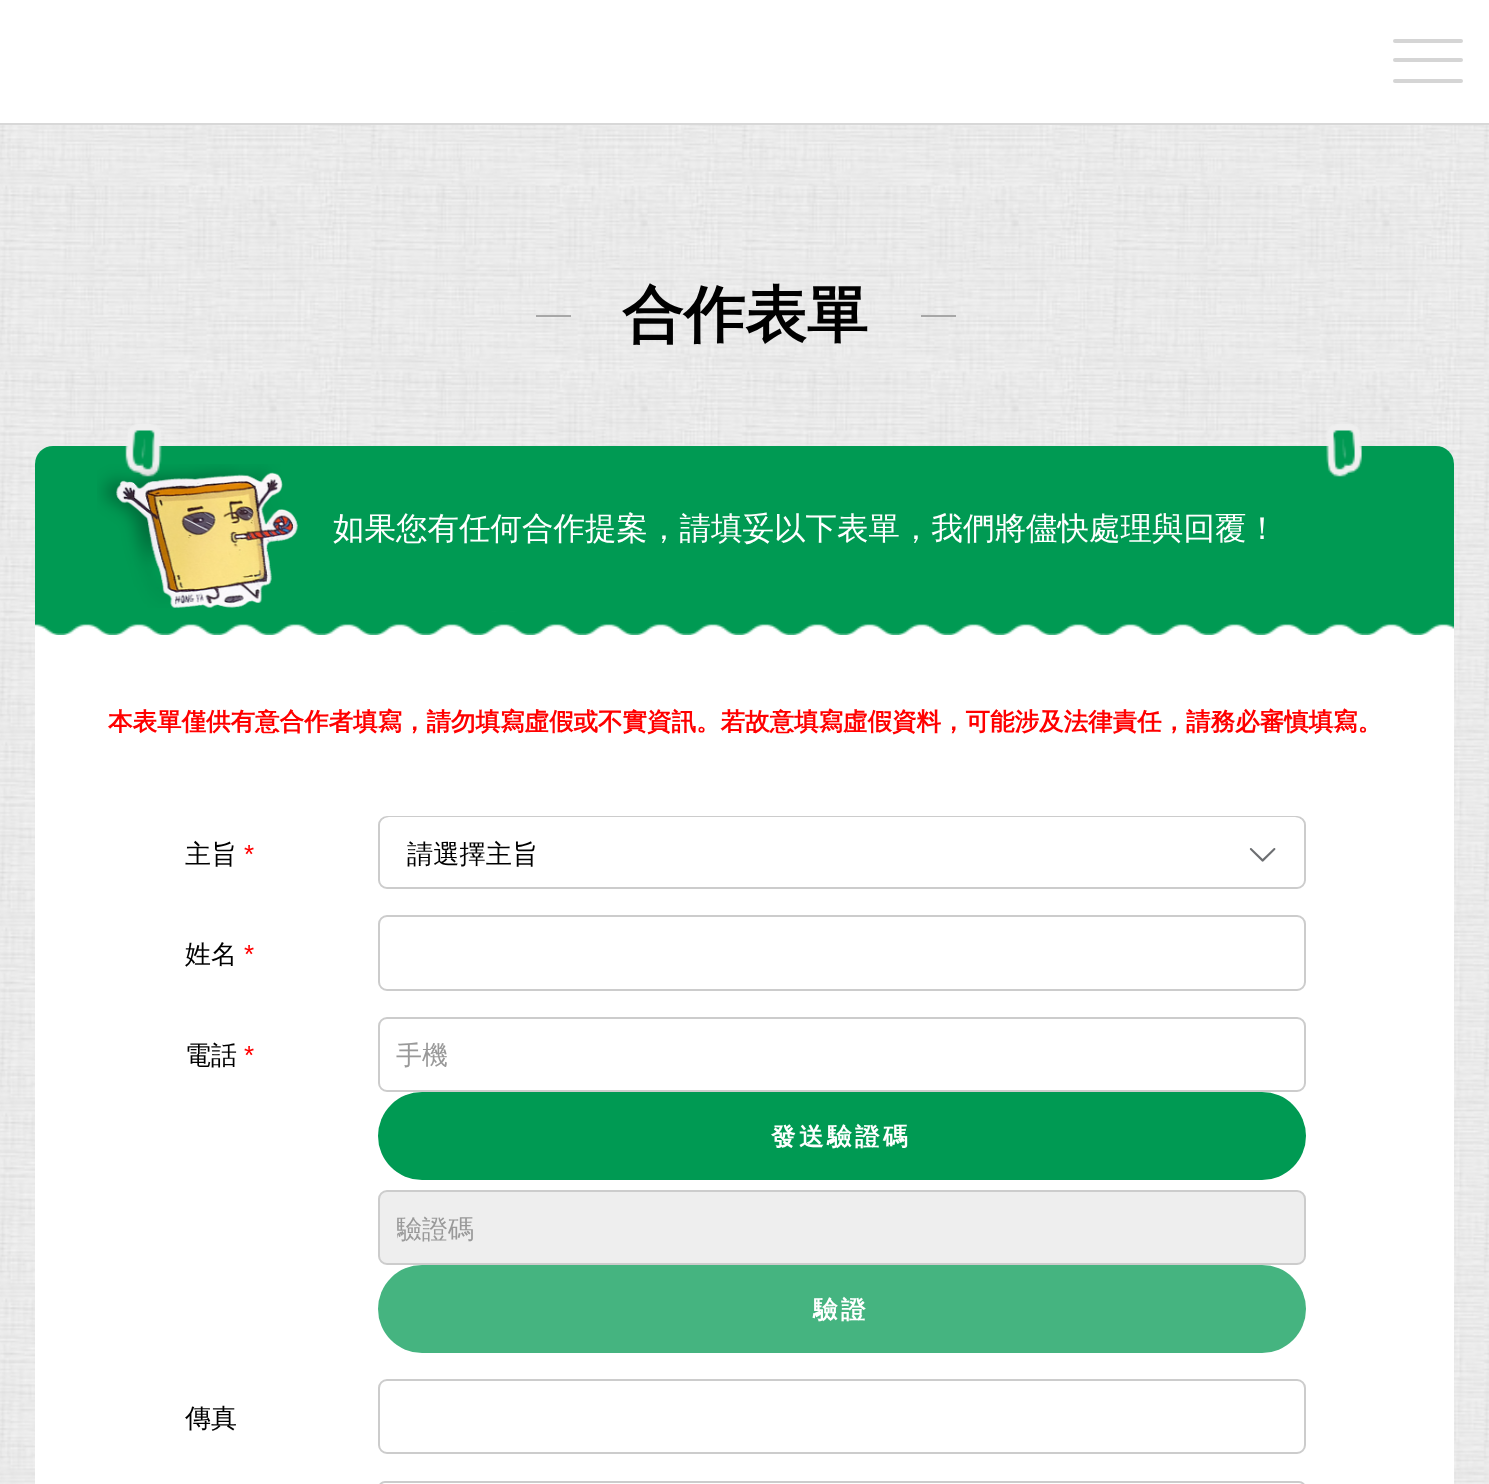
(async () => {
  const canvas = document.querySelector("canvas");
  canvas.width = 1489;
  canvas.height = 1484;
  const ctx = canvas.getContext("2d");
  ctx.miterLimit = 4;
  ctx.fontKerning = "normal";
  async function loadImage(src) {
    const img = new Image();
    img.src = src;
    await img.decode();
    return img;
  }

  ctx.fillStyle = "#ffffff";
  ctx.fillRect(0, 0, 1489, 1484);
  ctx.drawImage(await loadImage("img/1.png"), 0, 0, 1489, 1484);
  ctx.fillStyle = "rgba(255, 255, 255, 0.98)";
  ctx.fillRect(0, 0, 1489, 123);
  ctx.fillStyle = "#d8d8d8";
  ctx.fillRect(0, 123, 1489, 2);
  ctx.fillStyle = "#d5d5d5";
  ctx.beginPath();
  ctx.roundRect(1393, 39, 70, 4, 2);
  ctx.fill();
  ctx.beginPath();
  ctx.roundRect(1393, 58, 70, 4, 2);
  ctx.fill();
  ctx.beginPath();
  ctx.roundRect(1393, 79, 70, 4, 2);
  ctx.fill();
  ctx.fillStyle = "#a7a7a7";
  ctx.fillRect(536, 315, 35, 2);
  ctx.fillRect(921, 315, 35, 2);
  ctx.fillStyle = "#ffffff";
  ctx.beginPath();
  ctx.roundRect(35, 446, 1419, 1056, 18);
  ctx.fill();
  ctx.fillStyle = "#009a53";
  ctx.beginPath();
  ctx.roundRect(35, 446, 1419, 165, [18, 18, 0, 0]);
  ctx.fill();
  ctx.drawImage(await loadImage("img/2.png"), 125, 423, 37, 54);
  ctx.drawImage(await loadImage("img/3.png"), 1326, 424, 36, 53);
  ctx.drawImage(await loadImage("img/4.png"), 97, 464, 201, 144);
  ctx.drawImage(await loadImage("img/5.png"), 35, 611, 1419, 24);
  ctx.beginPath();
  ctx.roundRect(379, 817, 926, 71, 8);
  ctx.strokeStyle = "#cccccc";
  ctx.lineWidth = 2;
  ctx.stroke();
  ctx.fillStyle = "#ffffff";
  ctx.beginPath();
  ctx.roundRect(380, 817, 924, 70, 9);
  ctx.fill();
  ctx.drawImage(await loadImage("img/6.png"), 1249, 848, 27, 14);
  ctx.beginPath();
  ctx.roundRect(379, 916, 926, 74, 8);
  ctx.stroke();
  ctx.beginPath();
  ctx.roundRect(379, 1018, 926, 73, 8);
  ctx.stroke();
  ctx.fillStyle = "#009a53";
  ctx.beginPath();
  ctx.roundRect(378, 1092, 928, 88, 44);
  ctx.fill();
  ctx.fillStyle = "#eeeeee";
  ctx.beginPath();
  ctx.roundRect(379, 1191, 926, 73, 8);
  ctx.fill();
  ctx.stroke();
  ctx.fillStyle = "#45b480";
  ctx.beginPath();
  ctx.roundRect(378, 1265, 928, 88, 44);
  ctx.fill();
  ctx.beginPath();
  ctx.roundRect(379, 1380, 926, 73, 8);
  ctx.stroke();
  ctx.beginPath();
  ctx.roundRect(379, 1482, 926, 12, 8);
  ctx.stroke();
  ctx.font = "bold 61.5px WenQuanYi Zen Hei";
  ctx.fillStyle = "#000000";
  ctx.fillText("合作表單", 622, 336);
  ctx.font = "500 31.5px WenQuanYi Zen Hei";
  ctx.fillStyle = "#ffffff";
  ctx.fillText("如果您有任何合作提案，請填妥以下表單，我們將儘快處理與回覆！", 333, 539);
  ctx.font = "bold 24.5px WenQuanYi Zen Hei";
  ctx.fillStyle = "#ff0000";
  ctx.fillText("本表單僅供有意合作者填寫，請勿填寫虛假或不實資訊。若故意填寫虛假資料，可能涉及法律責任，請務必審慎填寫。", 108, 730);
  ctx.font = "500 26px WenQuanYi Zen Hei";
  ctx.fillStyle = "#000000";
  ctx.fillText("主旨", 185, 863);
  ctx.font = "26px Liberation Sans";
  ctx.fillStyle = "#ff0000";
  ctx.fillText("*", 244, 863);
  ctx.font = "500 26.25px WenQuanYi Zen Hei";
  ctx.fillStyle = "#000000";
  ctx.fillText("請選擇主旨", 407, 863);
  ctx.font = "500 26px WenQuanYi Zen Hei";
  ctx.fillText("姓名", 185, 963);
  ctx.font = "26px Liberation Sans";
  ctx.fillStyle = "#ff0000";
  ctx.fillText("*", 244, 963);
  ctx.font = "500 26px WenQuanYi Zen Hei";
  ctx.fillStyle = "#000000";
  ctx.fillText("電話", 185, 1064);
  ctx.font = "26px Liberation Sans";
  ctx.fillStyle = "#ff0000";
  ctx.fillText("*", 244, 1064);
  ctx.font = "500 26px WenQuanYi Zen Hei";
  ctx.fillStyle = "#999999";
  ctx.fillText("手機", 396, 1064);
  ctx.letterSpacing = "3.5px";
  ctx.font = "bold 24.5px WenQuanYi Zen Hei";
  ctx.fillStyle = "#ffffff";
  ctx.fillText("發送驗證碼", 771, 1145);
  ctx.save();
  ctx.beginPath();
  ctx.rect(397, 1213, 889, 33);
  ctx.clip();
  ctx.letterSpacing = "0px";
  ctx.font = "500 26px WenQuanYi Zen Hei";
  ctx.fillStyle = "#999999";
  ctx.fillText("驗證碼", 396, 1238);
  ctx.restore();
  ctx.fillText("驗證", 813, 1318);
  ctx.letterSpacing = "0px";
  ctx.font = "500 26px WenQuanYi Zen Hei";
  ctx.fillStyle = "#000000";
  ctx.fillText("傳真", 185, 1427);
})();
